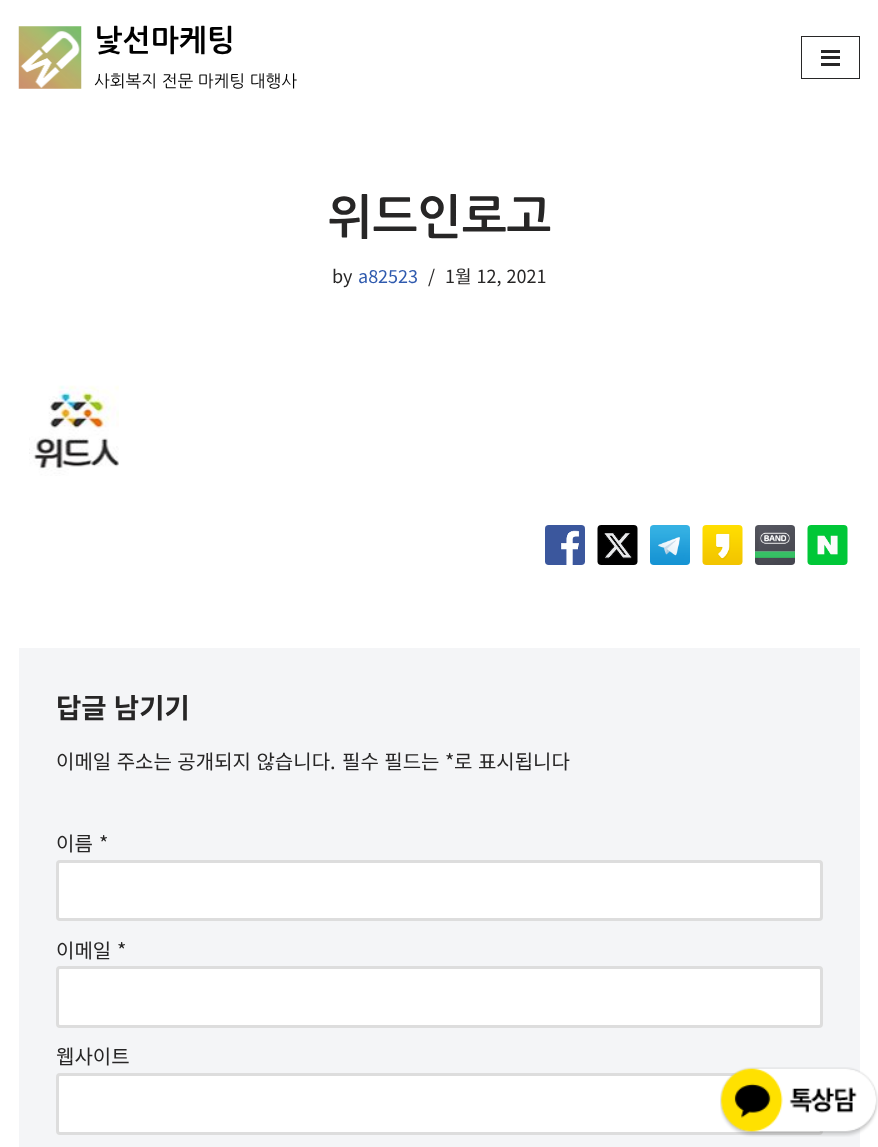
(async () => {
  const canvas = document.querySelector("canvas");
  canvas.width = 878;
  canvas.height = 1147;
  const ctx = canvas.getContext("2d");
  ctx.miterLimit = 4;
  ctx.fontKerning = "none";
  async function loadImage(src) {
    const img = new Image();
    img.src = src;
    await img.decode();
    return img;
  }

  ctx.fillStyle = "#ffffff";
  ctx.fillRect(0, 0, 878, 1147);
  ctx.drawImage(await loadImage("img/1.png"), 18, 26, 64, 63);
  ctx.strokeStyle = "#272626";
  ctx.strokeRect(801.5, 36.5, 58, 42);
  for (const [x, y, w, h, color] of [
    [821, 50, 19, 3, "#272626"],
    [821, 56, 19, 3, "#272626"],
    [821, 63, 19, 3, "#272626"],
  ]) {
    ctx.fillStyle = color;
    ctx.fillRect(x, y, w, h);
  }
  ctx.drawImage(await loadImage("img/2.png"), 29, 385, 90, 91);
  ctx.drawImage(await loadImage("img/3.png"), 545, 525, 40, 40);
  ctx.drawImage(await loadImage("img/4.png"), 597, 525, 41, 40);
  ctx.drawImage(await loadImage("img/5.png"), 650, 525, 40, 40);
  ctx.drawImage(await loadImage("img/6.png"), 702, 525, 41, 40);
  ctx.drawImage(await loadImage("img/7.png"), 755, 525, 40, 40);
  ctx.drawImage(await loadImage("img/8.png"), 807, 525, 41, 40);
  ctx.fillStyle = "#f4f5f7";
  ctx.fillRect(19, 648, 841, 499);
  ctx.fillStyle = "#ffffff";
  ctx.beginPath();
  ctx.roundRect(57.5, 861.5, 764, 58, 2.5);
  ctx.fill();
  ctx.strokeStyle = "#dddddd";
  ctx.lineWidth = 3;
  ctx.stroke();
  ctx.beginPath();
  ctx.roundRect(57.5, 967.5, 764, 59, 2.5);
  ctx.fill();
  ctx.stroke();
  ctx.beginPath();
  ctx.roundRect(57.5, 1074.5, 764, 59, 2.5);
  ctx.fill();
  ctx.stroke();
  ctx.drawImage(await loadImage("img/9.png"), 720, 1067, 158, 70);
  ctx.font = "bold 30px NanumGothic";
  ctx.fillStyle = "#000000";
  ctx.fillText("낯선마케팅", 94, 51);
  ctx.font = "16.75px NanumGothic";
  ctx.fillText("사회복지 전문 마케팅 대행사", 94, 87);
  ctx.font = "bold 47.5px NanumGothic";
  ctx.fillStyle = "#272626";
  ctx.fillText("위드인로고", 328, 234);
  ctx.font = "18px Noto Sans KR";
  ctx.fillText("by", 332, 283);
  ctx.fillStyle = "#2f5aae";
  ctx.fillText("a82523", 358, 283);
  ctx.fillStyle = "#272626";
  ctx.fillText("/", 428, 283);
  ctx.wordSpacing = "1px";
  ctx.fillText("1월 12, 2021", 445, 283);
  ctx.font = "bold 27.5px Noto Sans KR";
  ctx.fillText("답글 남기기", 56, 718);
  ctx.font = "20px Noto Sans KR";
  ctx.fillText("이메일 주소는 공개되지 않습니다.", 56, 769);
  ctx.fillText("필수 필드는", 342, 769);
  ctx.wordSpacing = "0px";
  ctx.fillText("*", 445, 769);
  ctx.wordSpacing = "1px";
  ctx.fillText("로 표시됩니다", 454, 769);
  ctx.wordSpacing = "0px";
  for (const [text, x, y] of [
    ["이름", 56, 851],
    ["*", 99, 851],
    ["이메일", 56, 958],
    ["*", 117, 958],
    ["웹사이트", 56, 1064],
  ]) {
    ctx.fillText(text, x, y);
  }
})();
